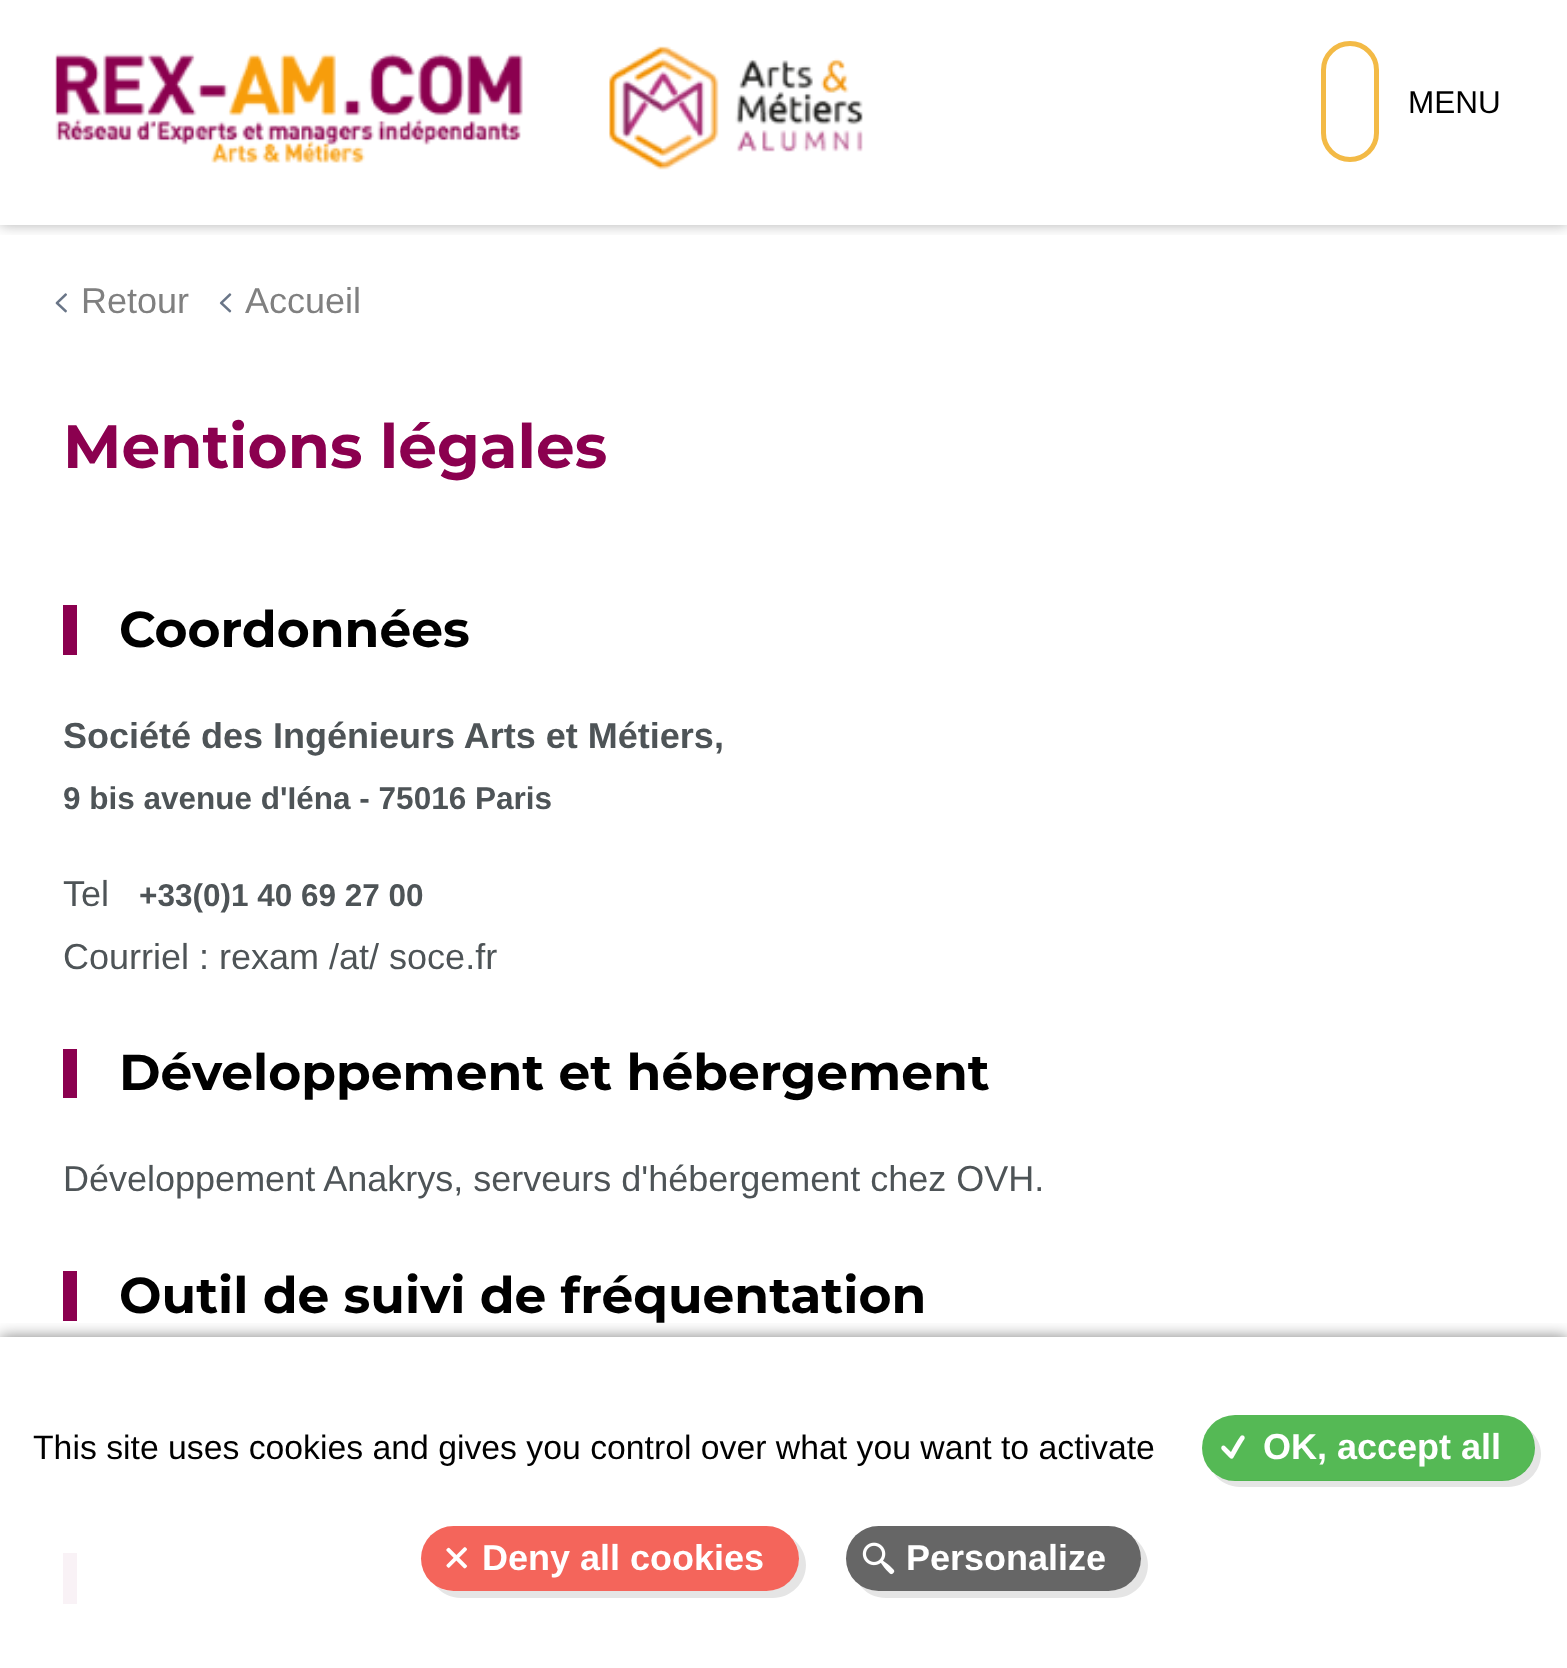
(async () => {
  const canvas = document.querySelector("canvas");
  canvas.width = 1567;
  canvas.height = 1668;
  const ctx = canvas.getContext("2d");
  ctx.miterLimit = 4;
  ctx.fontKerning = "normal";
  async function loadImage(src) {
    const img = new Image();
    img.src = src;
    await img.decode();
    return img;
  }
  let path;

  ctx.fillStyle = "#ffffff";
  ctx.fillRect(0, 0, 1567, 1668);
  ctx.save();
  ctx.beginPath();
  ctx.rect(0, 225, 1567, 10);
  ctx.clip();
  ctx.fillStyle = "rgba(0, 0, 0, 0.3)";
  ctx.filter = "blur(7px)";
  ctx.beginPath();
  ctx.rect(0, 0, 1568, 225);
  ctx.fill();
  ctx.filter = "none";
  ctx.restore();
  ctx.drawImage(await loadImage("img/1.png"), 55, 46, 808, 124);
  ctx.beginPath();
  ctx.roundRect(1323.5, 43.5, 53, 116, 26.5);
  ctx.strokeStyle = "#f3ba46";
  ctx.lineWidth = 5;
  ctx.stroke();
  ctx.drawImage(await loadImage("img/2.png"), 55, 293, 12, 20);
  ctx.drawImage(await loadImage("img/3.png"), 219, 293, 13, 20);
  for (const [x, y, w, h, color] of [
    [63, 605, 14, 50, "#8b004f"],
    [63, 1049, 14, 49, "#8b004f"],
    [63, 1271, 14, 50, "#8b004f"],
    [63, 1553, 14, 51, "#f9f2f6"],
  ]) {
    ctx.fillStyle = color;
    ctx.fillRect(x, y, w, h);
  }
  ctx.save();
  ctx.beginPath();
  ctx.rect(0, 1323, 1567, 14);
  ctx.clip();
  ctx.fillStyle = "rgba(0, 0, 0, 0.5)";
  ctx.filter = "blur(8px)";
  ctx.beginPath();
  ctx.rect(0, 1337, 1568, 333);
  ctx.fill();
  ctx.filter = "none";
  ctx.restore();
  ctx.fillStyle = "#e5e5e5";
  path = new Path2D("M1214 1474C1220 1482 1230 1487 1240 1487H1508C1526 1487 1541 1472 1541 1454C1541 1444 1536 1435 1528 1429C1532 1434 1534 1441 1534 1448C1534 1466 1520 1480 1502 1480H1234C1227 1480 1220 1478 1214 1474Z");
  ctx.fill(path);
  ctx.fillStyle = "rgba(42, 168, 42, 0.8)";
  ctx.beginPath();
  ctx.roundRect(1202, 1415, 333, 66, 33);
  ctx.fill();
  ctx.drawImage(await loadImage("img/4.png"), 1221, 1435, 24, 24);
  ctx.fillStyle = "rgba(0, 0, 0, 0.1)";
  path = new Path2D("M435 1585C441 1593 450 1598 461 1598H773C791 1598 806 1583 806 1565C806 1554 800 1544 792 1538C796 1543 799 1550 799 1558C799 1576 784 1591 766 1591H453C446 1591 440 1589 435 1585Z");
  ctx.fill(path);
  ctx.fillStyle = "rgba(239, 36, 22, 0.7)";
  ctx.beginPath();
  ctx.roundRect(421, 1526, 378, 65, 32.5);
  ctx.fill();
  ctx.drawImage(await loadImage("img/5.png"), 446, 1547, 22, 22);
  ctx.fillStyle = "rgba(0, 0, 0, 0.1)";
  path = new Path2D("M859 1584C865 1593 875 1598 886 1598H1115C1133 1598 1148 1583 1148 1565C1148 1554 1142 1544 1134 1538C1138 1543 1141 1550 1141 1558C1141 1576 1126 1591 1108 1591H879C871 1591 865 1588 859 1584Z");
  ctx.fill(path);
  ctx.fillStyle = "#666666";
  ctx.beginPath();
  ctx.roundRect(846, 1526, 295, 65, 32.5);
  ctx.fill();
  ctx.drawImage(await loadImage("img/6.png"), 862, 1542, 33, 33);
  ctx.font = "31.5px Liberation Sans";
  ctx.fillStyle = "#000000";
  ctx.fillText("MENU", 1408, 113);
  ctx.font = "36px Liberation Sans";
  ctx.fillStyle = "#808080";
  ctx.fillText("Retour", 81, 313);
  ctx.fillText("Accueil", 245, 313);
  ctx.font = "bold 61.25px Montserrat";
  ctx.fillStyle = "#8b004f";
  ctx.fillText("Mentions légales", 63, 468);
  ctx.font = "bold 50.4px Montserrat";
  ctx.fillStyle = "#000000";
  ctx.fillText("Coordonnées", 119, 647);
  ctx.font = "bold 36px Liberation Sans";
  ctx.fillStyle = "#4e5457";
  ctx.fillText("Société des Ingénieurs Arts et Métiers,", 63, 748);
  ctx.font = "bold 31.5px Liberation Sans";
  ctx.fillText("9 bis avenue d'Iéna - 75016 Paris", 63, 809);
  ctx.font = "36px Liberation Sans";
  ctx.fillText("Tel", 63, 906);
  ctx.font = "bold 31.5px Liberation Sans";
  ctx.fillText("+33(0)1 40 69 27 00", 139, 906);
  ctx.font = "36px Liberation Sans";
  ctx.fillText("Courriel : rexam /at/ soce.fr", 63, 969);
  ctx.font = "bold 50.4px Montserrat";
  ctx.fillStyle = "#000000";
  ctx.fillText("Développement et hébergement", 119, 1090);
  ctx.font = "36px Liberation Sans";
  ctx.fillStyle = "#4e5457";
  ctx.fillText("Développement Anakrys, serveurs d'hébergement chez OVH.", 63, 1191);
  ctx.font = "bold 50.4px Montserrat";
  ctx.fillStyle = "#000000";
  ctx.fillText("Outil de suivi de fréquentation", 119, 1313);
  ctx.font = "33.75px Liberation Sans";
  ctx.fillText("This site uses cookies and gives you control over what you want to activate", 33, 1459);
  ctx.font = "bold 36px Liberation Sans";
  ctx.fillStyle = "#ffffff";
  for (const [text, x, y] of [
    ["OK, accept all", 1263, 1459],
    ["Deny all cookies", 482, 1570],
    ["Personalize", 906, 1570],
  ]) {
    ctx.fillText(text, x, y);
  }
})();
